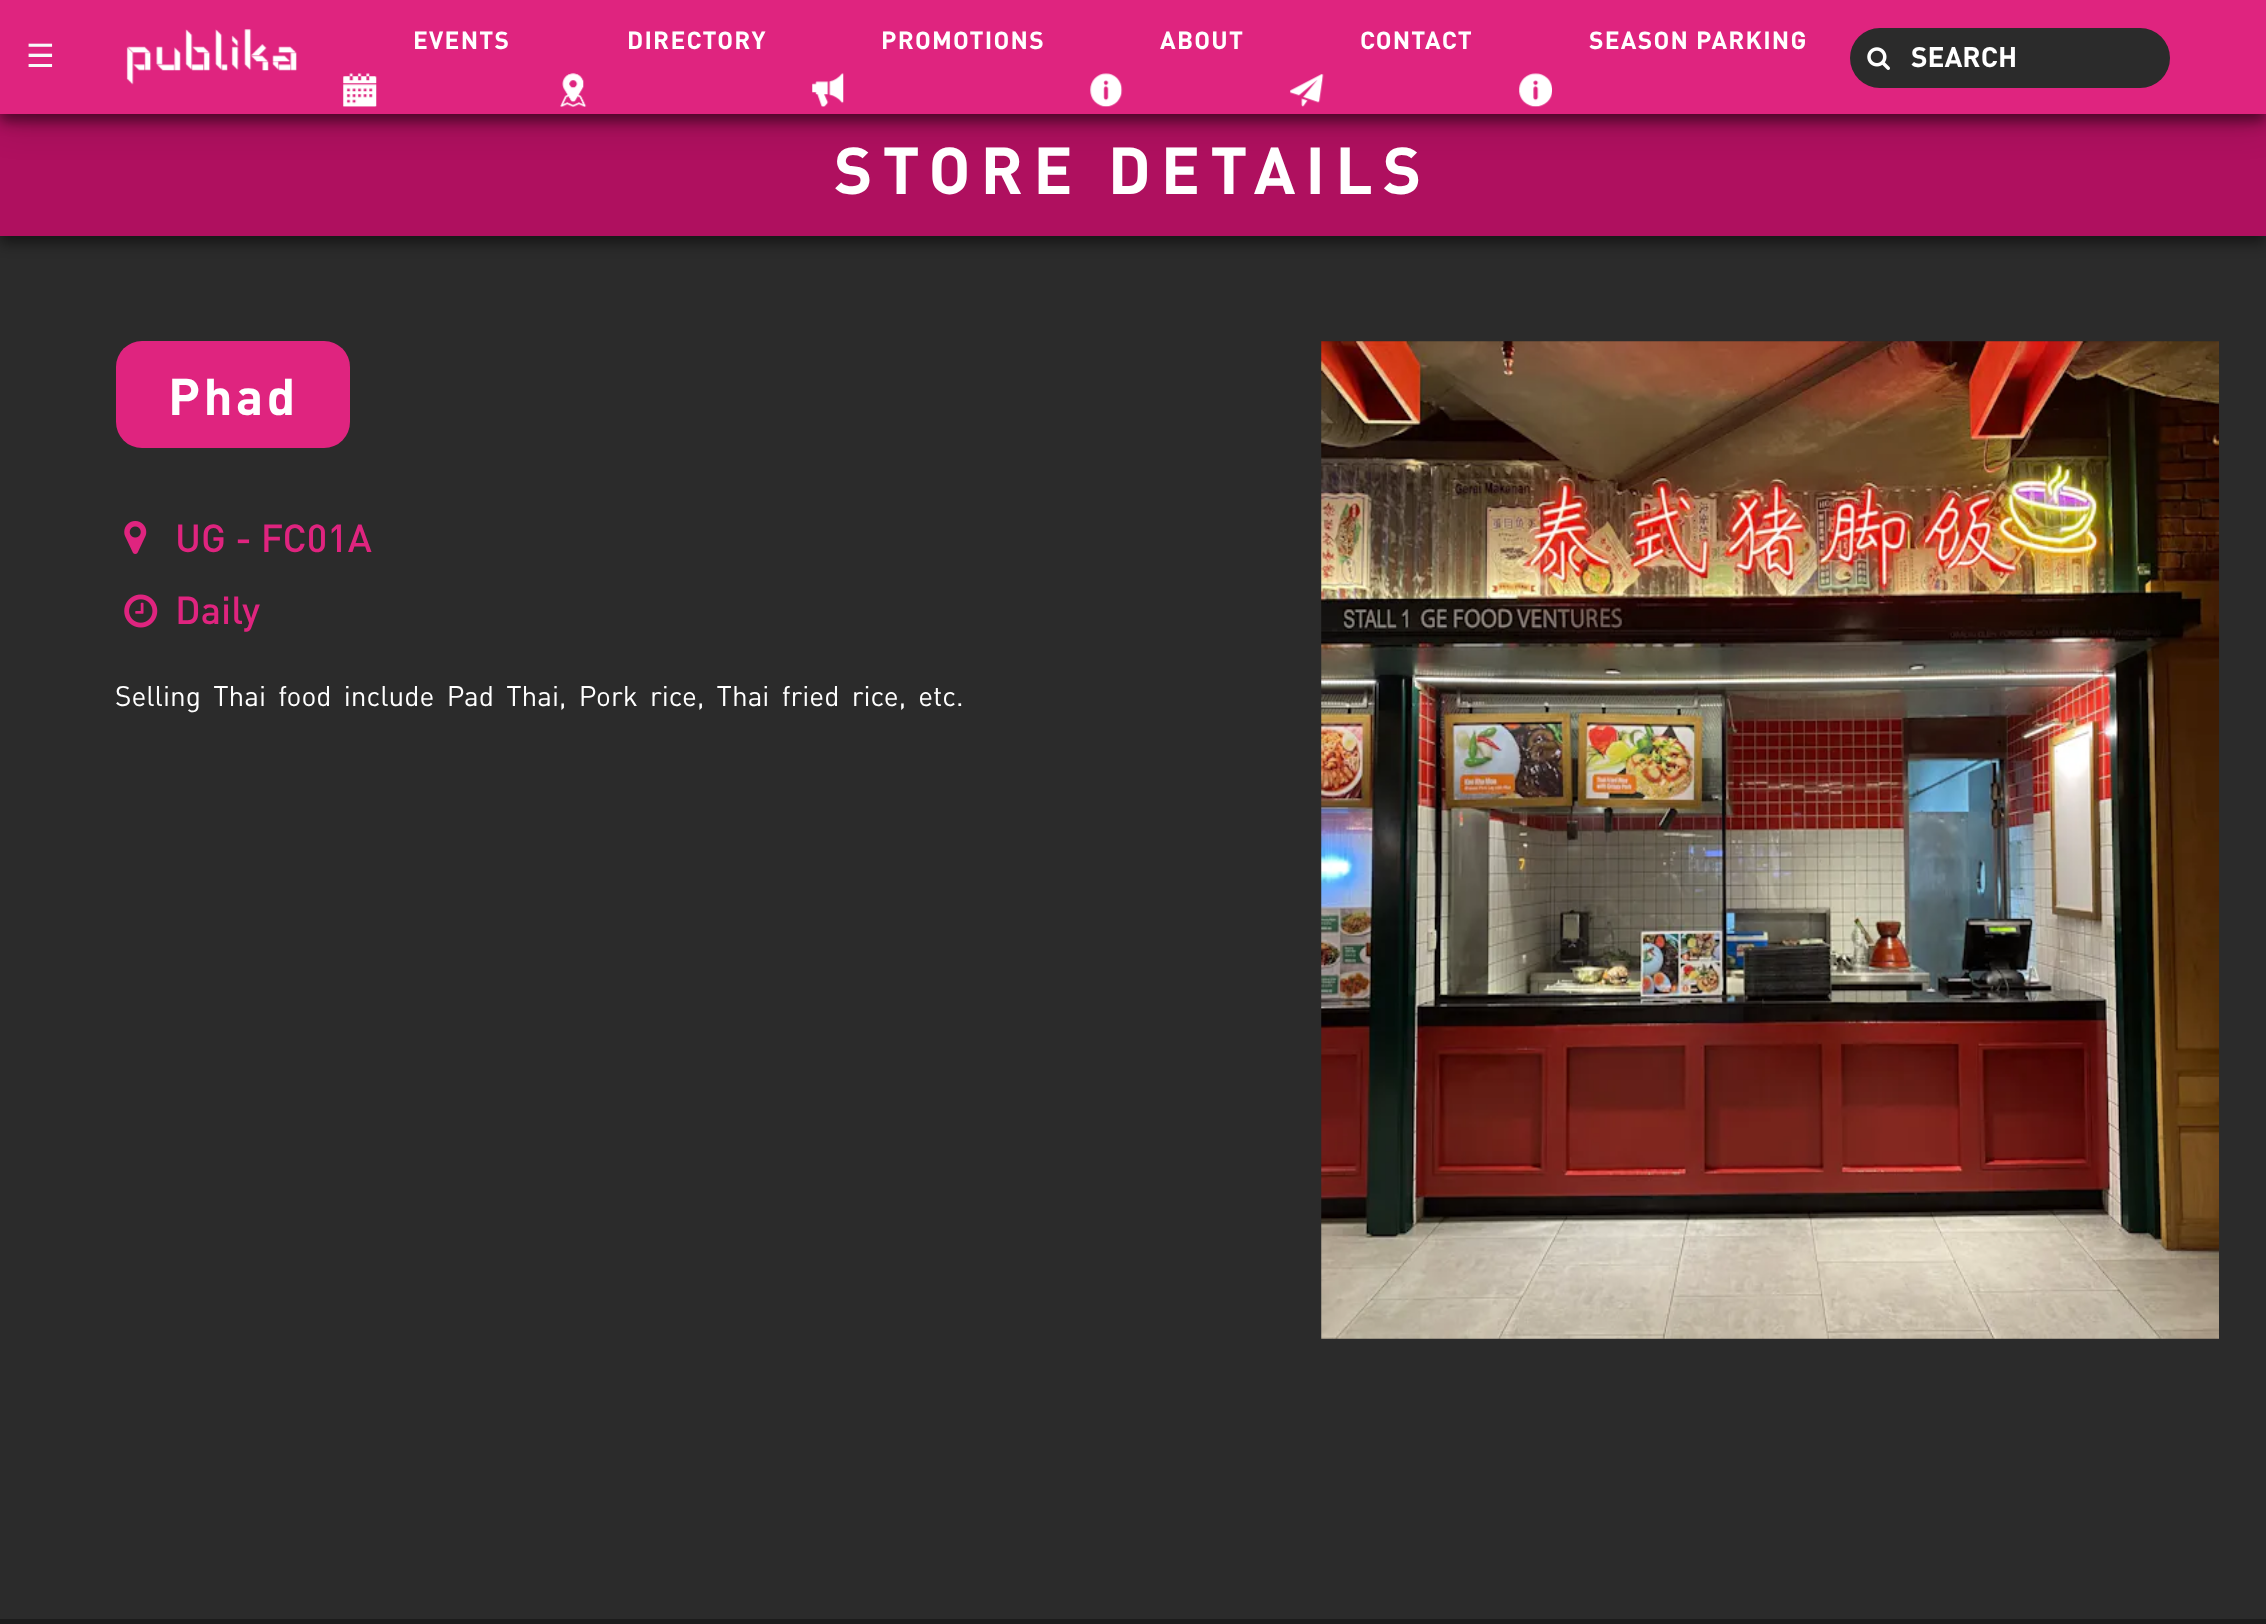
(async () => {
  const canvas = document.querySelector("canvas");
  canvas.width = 2266;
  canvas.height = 1624;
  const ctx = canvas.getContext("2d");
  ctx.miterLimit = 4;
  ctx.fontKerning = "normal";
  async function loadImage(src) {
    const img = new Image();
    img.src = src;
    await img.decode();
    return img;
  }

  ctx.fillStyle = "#2b2b2b";
  ctx.fillRect(0, 0, 2266, 1624);
  ctx.fillStyle = "rgba(0, 0, 0, 0.5)";
  ctx.filter = "blur(7px)";
  ctx.beginPath();
  ctx.rect(0, 121, 2266, 122);
  ctx.fill();
  ctx.filter = "none";
  ctx.fillStyle = "#af105f";
  ctx.fillRect(0, 114, 2266, 122);
  ctx.fillStyle = "rgba(0, 0, 0, 0.19)";
  ctx.filter = "blur(17.5px)";
  ctx.beginPath();
  ctx.rect(0, 11, 2266, 113);
  ctx.fill();
  ctx.filter = "none";
  ctx.fillStyle = "rgba(0, 0, 0, 0.5)";
  ctx.filter = "blur(7px)";
  ctx.beginPath();
  ctx.rect(0, 7, 2266, 114);
  ctx.fill();
  ctx.filter = "none";
  ctx.fillStyle = "#df247f";
  ctx.fillRect(0, 0, 2266, 114);
  ctx.drawImage(await loadImage("img/1.png"), 126, 29, 171, 56);
  ctx.drawImage(await loadImage("img/2.png"), 343, 73, 34, 34);
  ctx.drawImage(await loadImage("img/3.png"), 560, 73, 27, 34);
  ctx.drawImage(await loadImage("img/4.png"), 812, 73, 32, 34);
  ctx.drawImage(await loadImage("img/5.png"), 1090, 73, 33, 34);
  ctx.drawImage(await loadImage("img/6.png"), 1290, 74, 34, 33);
  ctx.drawImage(await loadImage("img/7.png"), 1519, 73, 33, 34);
  ctx.fillStyle = "#2b2b2b";
  ctx.beginPath();
  ctx.roundRect(1850, 28, 320, 60, 30);
  ctx.fill();
  ctx.drawImage(await loadImage("img/8.png"), 1867, 47, 23, 23);
  ctx.fillStyle = "#df247f";
  ctx.beginPath();
  ctx.roundRect(116, 341, 234, 107, 26);
  ctx.fill();
  ctx.drawImage(await loadImage("img/9.png"), 124, 521, 23, 33);
  ctx.drawImage(await loadImage("img/10.png"), 124, 594, 34, 34);
  ctx.drawImage(await loadImage("img/11.png"), 1321, 341, 898, 998);
  ctx.fillStyle = "#1c1c1c";
  ctx.fillRect(0, 1619, 2266, 5);
  ctx.font = "32px DejaVu Sans";
  ctx.fillStyle = "#f8f9fa";
  ctx.fillText("☰", 26, 67);
  ctx.letterSpacing = "1.25px";
  ctx.font = "bold 24.5px DIN";
  ctx.fillStyle = "#ffffff";
  for (const [text, x, y] of [
    ["EVENTS", 413, 49],
    ["DIRECTORY", 627, 49],
    ["PROMOTIONS", 881, 49],
    ["ABOUT", 1160, 49],
    ["CONTACT", 1360, 49],
    ["SEASON PARKING", 1589, 49],
  ]) {
    ctx.fillText(text, x, y);
  }
  ctx.letterSpacing = "0px";
  ctx.font = "bold 28px DIN";
  ctx.fillText("SEARCH", 1911, 67);
  ctx.letterSpacing = "10px";
  ctx.font = "bold 65.25px DIN";
  ctx.fillText("STORE DETAILS", 834, 194);
  ctx.letterSpacing = "3.5px";
  ctx.font = "bold 51px DIN";
  ctx.fillText("Phad", 168, 415);
  ctx.letterSpacing = "0px";
  ctx.font = "500 38.5px DIN";
  ctx.fillStyle = "#df247f";
  ctx.fillText("UG - FC01A", 175, 552);
  ctx.fillText("Daily", 175, 624);
  ctx.wordSpacing = "5.25px";
  ctx.font = "28px DIN";
  ctx.fillStyle = "#ffffff";
  ctx.fillText("Selling Thai food include Pad Thai, Pork rice, Thai fried rice, etc.", 115, 706);
})();
